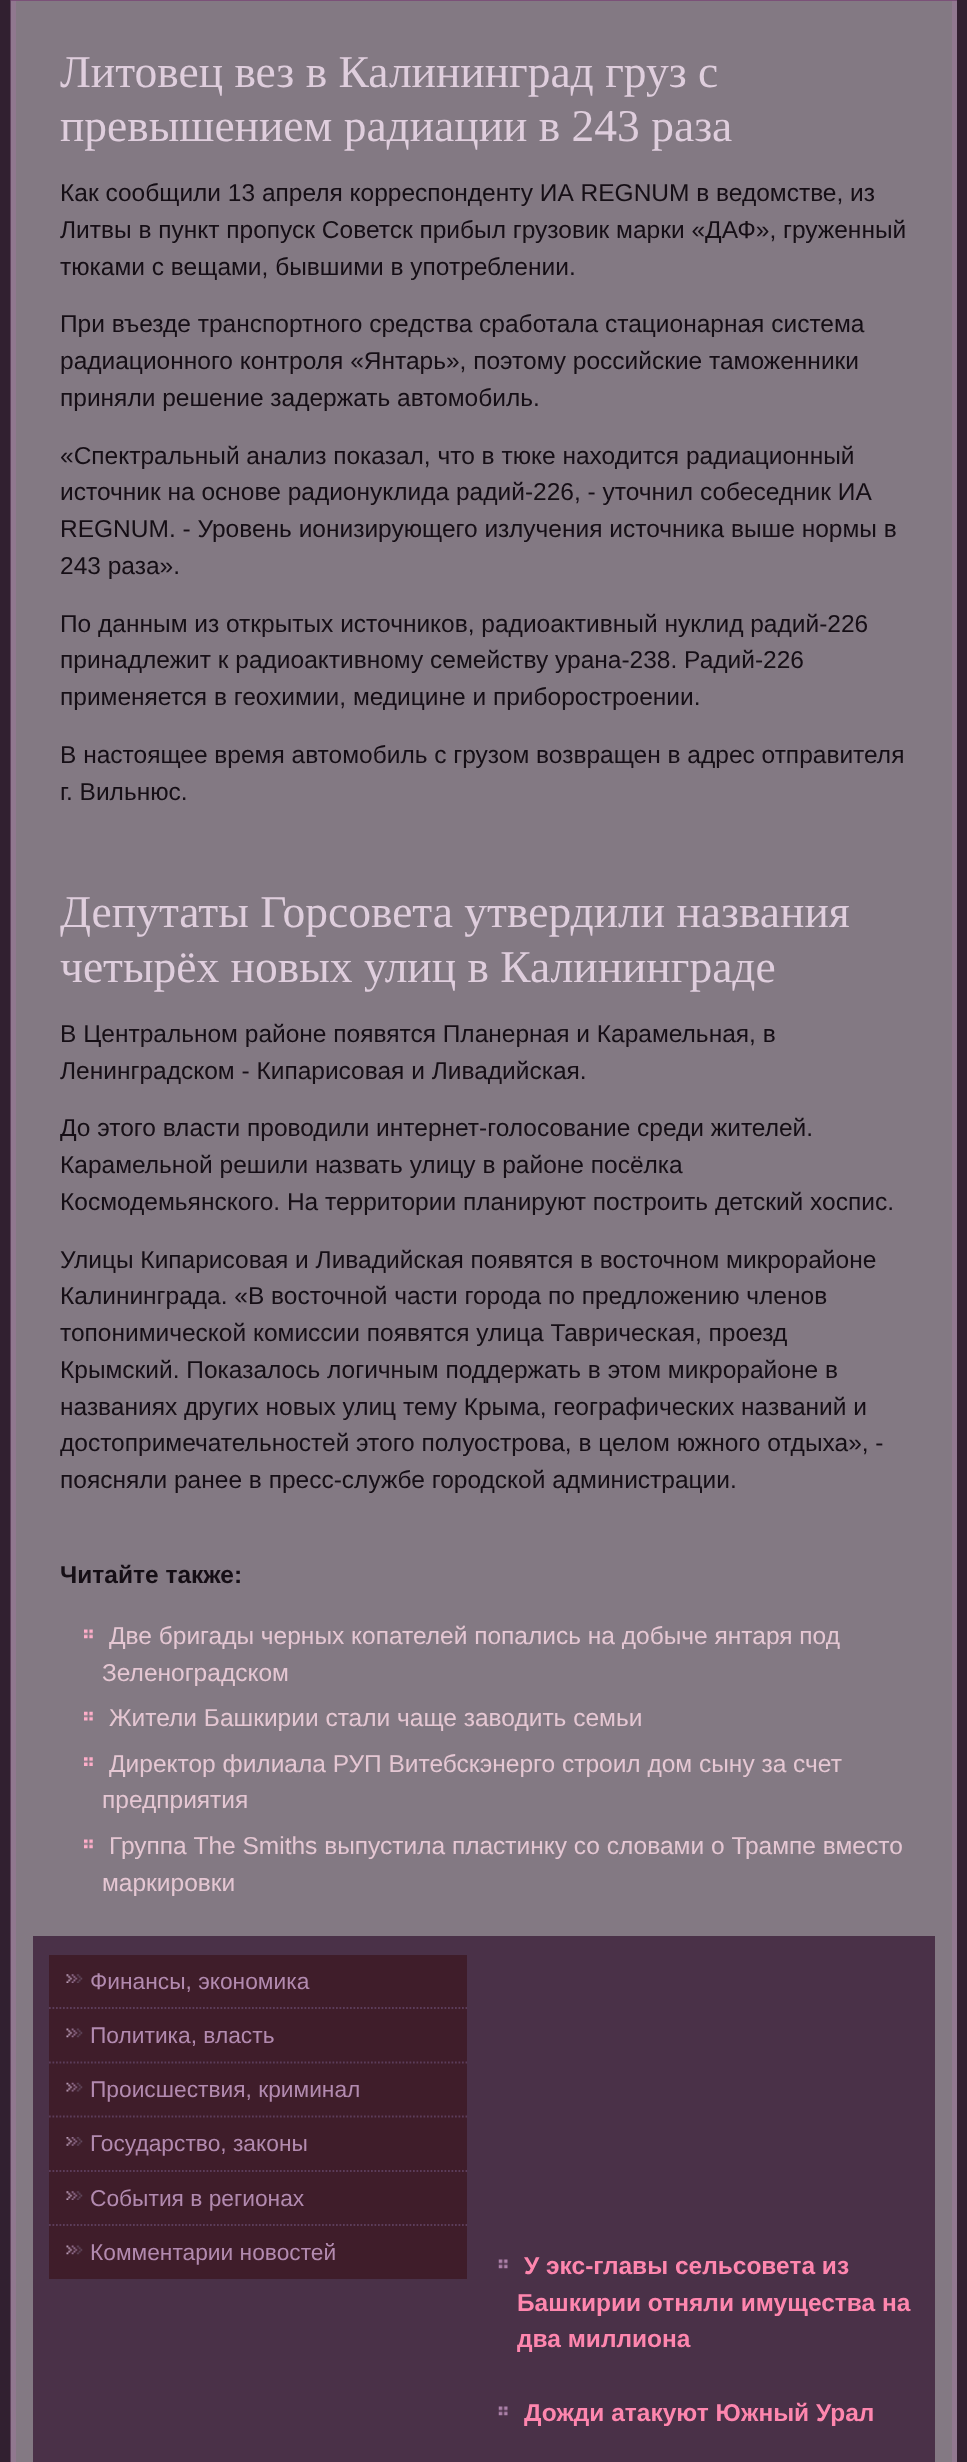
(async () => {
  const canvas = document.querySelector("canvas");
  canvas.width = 967;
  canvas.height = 2462;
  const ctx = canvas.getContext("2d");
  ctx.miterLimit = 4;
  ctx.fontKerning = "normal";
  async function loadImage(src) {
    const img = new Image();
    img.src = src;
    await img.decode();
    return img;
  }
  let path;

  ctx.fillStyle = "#312030";
  ctx.fillRect(0, 0, 967, 2462);
  ctx.fillStyle = "#917990";
  path = new Path2D("M957 0V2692L952 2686V0Z");
  ctx.fill(path);
  ctx.fillStyle = "#837983";
  ctx.fillRect(11, 1, 941, 2461);
  ctx.fillStyle = "rgba(166, 120, 163, 0.4)";
  path = new Path2D("M10 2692V0H16V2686Z");
  ctx.fill(path);
  ctx.fillStyle = "#7b5178";
  ctx.fillRect(11, 0, 946, 1);
  ctx.drawImage(await loadImage("img/1.png"), 84, 1629, 9, 10);
  ctx.drawImage(await loadImage("img/2.png"), 84, 1711, 9, 10);
  ctx.drawImage(await loadImage("img/3.png"), 84, 1757, 9, 9);
  ctx.drawImage(await loadImage("img/1.png"), 84, 1839, 9, 10);
  ctx.fillStyle = "#4a3148";
  ctx.fillRect(33, 1936, 902, 526);
  ctx.fillStyle = "#3f1d2a";
  ctx.fillRect(49, 1955, 418, 54);
  ctx.drawImage(await loadImage("img/4.png"), 66, 1974, 17, 9);
  path = new Path2D("M49 2008H467");
  ctx.strokeStyle = "#5c3d5a";
  ctx.lineWidth = 1.8;
  ctx.setLineDash([1.75, 1.75]);
  ctx.stroke(path);
  ctx.fillRect(49, 2009, 418, 54);
  ctx.drawImage(await loadImage("img/5.png"), 66, 2028, 17, 10);
  ctx.fillRect(49, 2063, 418, 55);
  path = new Path2D("M49 2062.5H467");
  ctx.stroke(path);
  ctx.drawImage(await loadImage("img/6.png"), 66, 2082, 17, 10);
  path = new Path2D("M49 2116.5H467");
  ctx.stroke(path);
  ctx.fillRect(49, 2118, 418, 54);
  ctx.drawImage(await loadImage("img/7.png"), 66, 2137, 17, 9);
  path = new Path2D("M49 2171H467");
  ctx.stroke(path);
  ctx.fillRect(49, 2172, 418, 107);
  ctx.drawImage(await loadImage("img/4.png"), 66, 2191, 17, 9);
  path = new Path2D("M49 2225H467");
  ctx.stroke(path);
  ctx.drawImage(await loadImage("img/5.png"), 66, 2245, 17, 10);
  ctx.drawImage(await loadImage("img/8.png"), 498, 2259, 10, 10);
  ctx.drawImage(await loadImage("img/8.png"), 498, 2406, 10, 10);
  ctx.font = "45.5px Liberation Serif";
  ctx.fillStyle = "#dfcedd";
  ctx.fillText("Литовец вез в Калининград груз с", 60, 87);
  ctx.fillText("превышением радиации в 243 раза", 60, 141);
  ctx.font = "24.5px Liberation Sans";
  ctx.fillStyle = "#150e15";
  for (const [text, x, y] of [
    ["Как сообщили 13 апреля корреспонденту ИА REGNUM в ведомстве, из", 60, 201],
    ["Литвы в пункт пропуск Советск прибыл грузовик марки «ДАФ», груженный", 60, 238],
    ["тюками с вещами, бывшими в употреблении.", 60, 275],
    ["При въезде транспортного средства сработала стационарная система", 60, 332],
    ["радиационного контроля «Янтарь», поэтому российские таможенники", 60, 369],
    ["приняли решение задержать автомобиль.", 60, 406],
    ["«Спектральный анализ показал, что в тюке находится радиационный", 60, 464],
    ["источник на основе радионуклида радий-226, - уточнил собеседник ИА", 60, 500],
    ["REGNUM. - Уровень ионизирующего излучения источника выше нормы в", 60, 537],
    ["243 раза».", 60, 574],
    ["По данным из открытых источников, радиоактивный нуклид радий-226", 60, 632],
    ["принадлежит к радиоактивному семейству урана-238. Радий-226", 60, 668],
    ["применяется в геохимии, медицине и приборостроении.", 60, 705],
    ["В настоящее время автомобиль с грузом возвращен в адрес отправителя", 60, 763],
    ["г. Вильнюс.", 60, 800],
  ]) {
    ctx.fillText(text, x, y);
  }
  ctx.font = "45.5px Liberation Serif";
  ctx.fillStyle = "#dfcedd";
  ctx.fillText("Депутаты Горсовета утвердили названия", 60, 927);
  ctx.fillText("четырёх новых улиц в Калининграде", 60, 982);
  ctx.font = "24.5px Liberation Sans";
  ctx.fillStyle = "#150e15";
  for (const [text, x, y] of [
    ["В Центральном районе появятся Планерная и Карамельная, в", 60, 1042],
    ["Ленинградском - Кипарисовая и Ливадийская.", 60, 1079],
    ["До этого власти проводили интернет-голосование среди жителей.", 60, 1136],
    ["Карамельной решили назвать улицу в районе посёлка", 60, 1173],
    ["Космодемьянского. На территории планируют построить детский хоспис.", 60, 1210],
    ["Улицы Кипарисовая и Ливадийская появятся в восточном микрорайоне", 60, 1268],
    ["Калининграда. «В восточной части города по предложению членов", 60, 1304],
    ["топонимической комиссии появятся улица Таврическая, проезд", 60, 1341],
    ["Крымский. Показалось логичным поддержать в этом микрорайоне в", 60, 1378],
    ["названиях других новых улиц тему Крыма, географических названий и", 60, 1415],
    ["достопримечательностей этого полуострова, в целом южного отдыха», -", 60, 1451],
    ["поясняли ранее в пресс-службе городской администрации.", 60, 1488],
  ]) {
    ctx.fillText(text, x, y);
  }
  ctx.font = "bold 24.5px Liberation Sans";
  ctx.fillText("Читайте также:", 60, 1583);
  ctx.font = "24.5px Liberation Sans";
  ctx.fillStyle = "#e5c7d3";
  for (const [text, x, y] of [
    ["Две бригады черных копателей попались на добыче янтаря под", 109, 1644],
    ["Зеленоградском", 102, 1681],
    ["Жители Башкирии стали чаще заводить семьи", 109, 1726],
    ["Директор филиала РУП Витебскэнерго строил дом сыну за счет", 109, 1772],
    ["предприятия", 102, 1808],
    ["Группа The Smiths выпустила пластинку со словами о Трампе вместо", 109, 1854],
    ["маркировки", 102, 1891],
  ]) {
    ctx.fillText(text, x, y);
  }
  ctx.font = "22.75px Liberation Sans";
  ctx.fillStyle = "#b28aaf";
  for (const [text, x, y] of [
    ["Финансы, экономика", 90, 1989],
    ["Политика, власть", 90, 2043],
    ["Происшествия, криминал", 90, 2097],
    ["Государство, законы", 90, 2151],
    ["События в регионах", 90, 2206],
    ["Комментарии новостей", 90, 2260],
  ]) {
    ctx.fillText(text, x, y);
  }
  ctx.font = "bold 24.5px Liberation Sans";
  ctx.fillStyle = "#fe86ae";
  for (const [text, x, y] of [
    ["У экс-главы сельсовета из", 524, 2274],
    ["Башкирии отняли имущества на", 517, 2311],
    ["два миллиона", 517, 2347],
    ["Дожди атакуют Южный Урал", 524, 2421],
  ]) {
    ctx.fillText(text, x, y);
  }
})();
